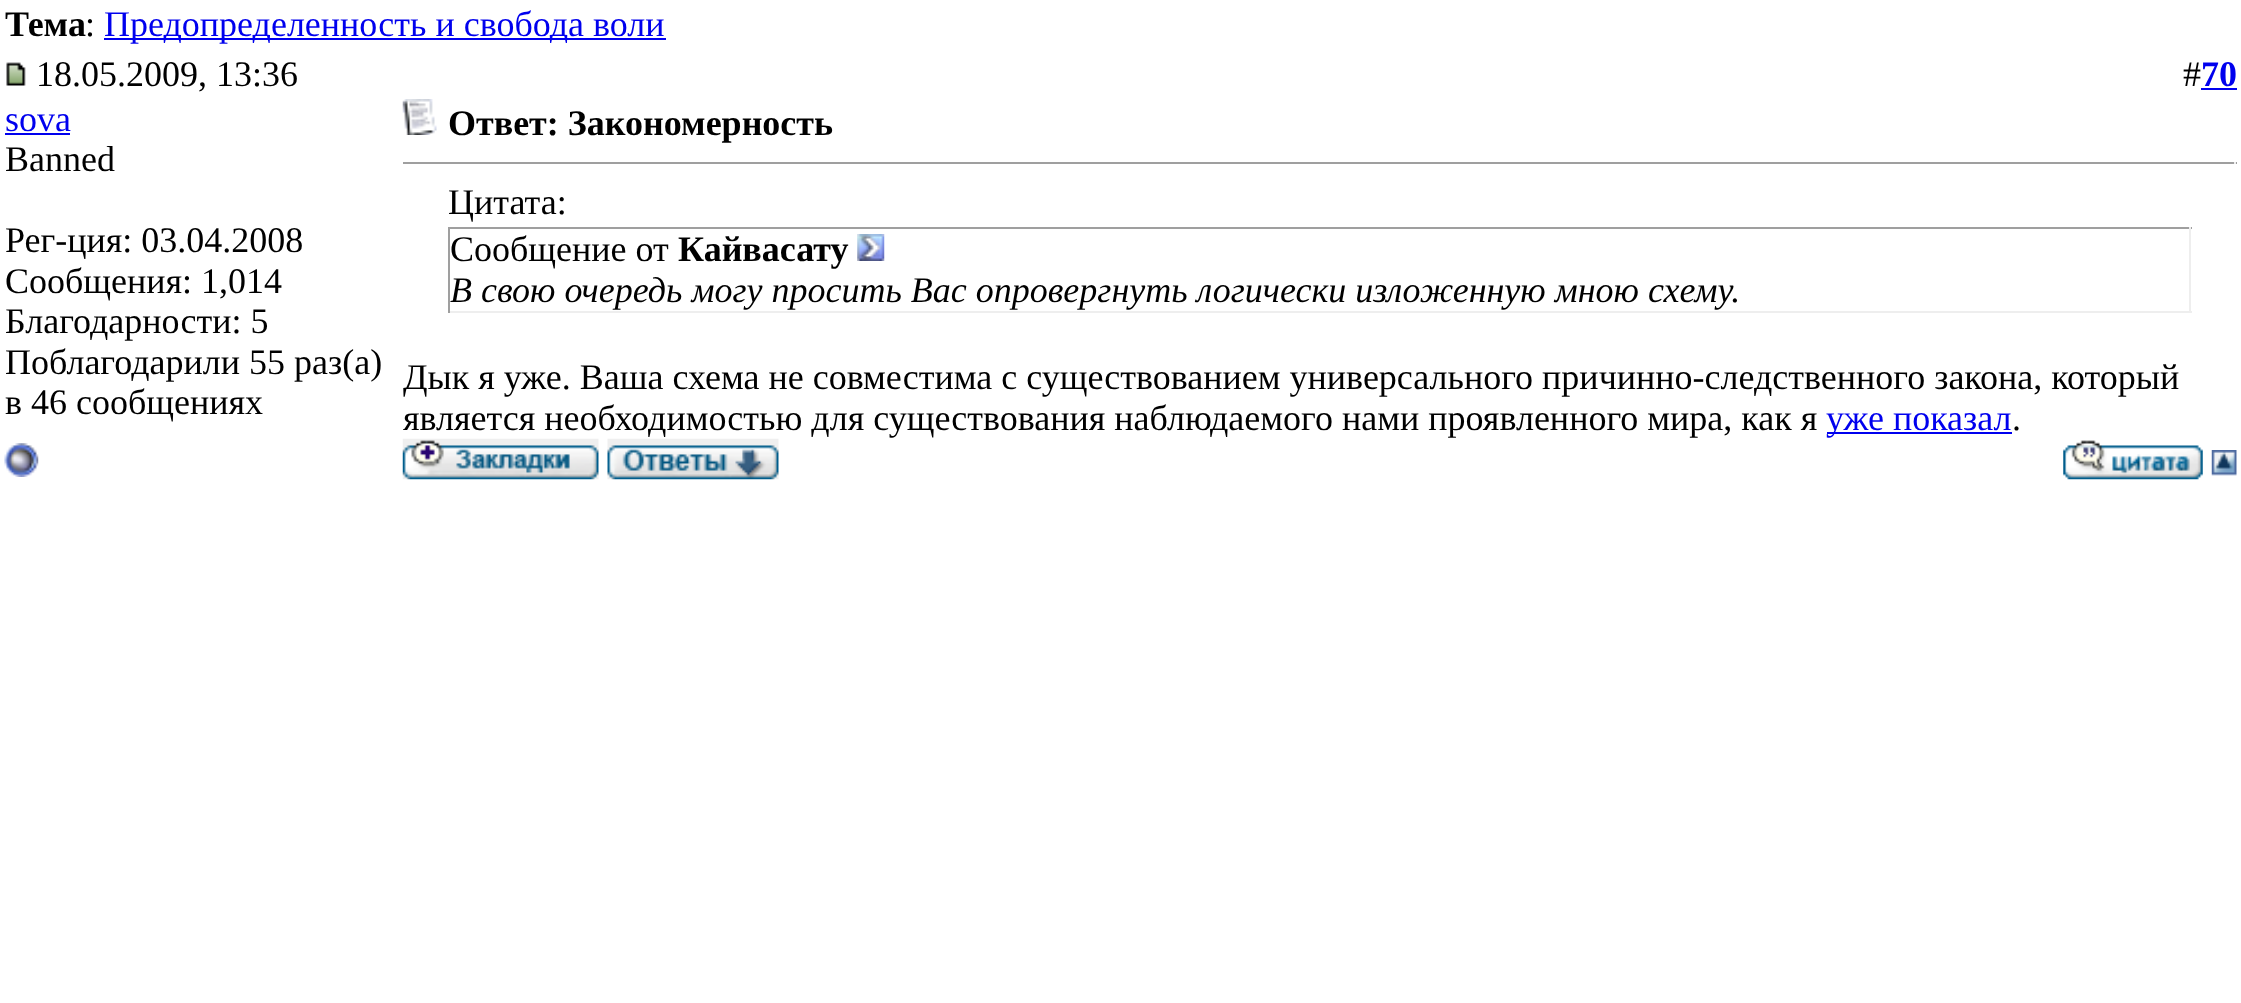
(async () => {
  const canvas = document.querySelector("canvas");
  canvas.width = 2241;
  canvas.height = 1003;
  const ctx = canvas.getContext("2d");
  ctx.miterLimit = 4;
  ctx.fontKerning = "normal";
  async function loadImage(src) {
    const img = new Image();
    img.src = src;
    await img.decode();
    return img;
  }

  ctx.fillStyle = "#ffffff";
  ctx.fillRect(0, 0, 2241, 1003);
  ctx.fillStyle = "#0000ee";
  ctx.fillRect(104, 38, 562, 2);
  ctx.drawImage(await loadImage("img/1.png"), 6, 62, 20, 24);
  ctx.fillRect(2201, 88, 36, 2);
  ctx.fillRect(5, 133, 65, 2);
  ctx.drawImage(await loadImage("img/2.png"), 402, 99, 35, 36);
  for (const [x, y, w, h, color] of [
    [403, 162, 1834, 2, "#9f9f9f"],
    [2234, 162, 2, 2, "#eeeeee"],
    [448, 227, 1744, 2, "#9f9f9f"],
    [2189, 227, 2, 86, "#eeeeee"],
    [448, 311, 1744, 2, "#eeeeee"],
    [448, 227, 2, 86, "#9f9f9f"],
  ]) {
    ctx.fillStyle = color;
    ctx.fillRect(x, y, w, h);
  }
  ctx.drawImage(await loadImage("img/3.png"), 857, 234, 28, 27);
  ctx.fillStyle = "#0000ee";
  ctx.fillRect(1827, 432, 185, 2);
  ctx.drawImage(await loadImage("img/4.png"), 4, 443, 35, 34);
  ctx.drawImage(await loadImage("img/5.png"), 402, 438, 197, 42);
  ctx.drawImage(await loadImage("img/6.png"), 607, 438, 172, 42);
  ctx.drawImage(await loadImage("img/7.png"), 2063, 440, 140, 40);
  ctx.drawImage(await loadImage("img/8.png"), 2211, 450, 26, 26);
  ctx.font = "bold 36px Liberation Serif";
  ctx.fillStyle = "#000000";
  ctx.fillText("Тема", 5, 36);
  ctx.font = "36px Liberation Serif";
  ctx.fillText(":", 85, 36);
  ctx.fillStyle = "#0000ee";
  ctx.fillText("Предопределенность и свобода воли", 104, 36);
  ctx.fillStyle = "#000000";
  ctx.fillText("18.05.2009, 13:36", 36, 86);
  ctx.fillText("#", 2183, 86);
  ctx.font = "bold 36px Liberation Serif";
  ctx.fillStyle = "#0000ee";
  ctx.fillText("70", 2201, 86);
  ctx.font = "36px Liberation Serif";
  ctx.fillText("sova", 5, 131);
  ctx.fillStyle = "#000000";
  for (const [text, x, y] of [
    ["Banned", 5, 171],
    ["Рег-ция: 03.04.2008", 5, 252],
    ["Сообщения: 1,014", 5, 293],
    ["Благодарности: 5", 5, 333],
    ["Поблагодарили 55 раз(а)", 5, 374],
    ["в 46 сообщениях", 5, 414],
  ]) {
    ctx.fillText(text, x, y);
  }
  ctx.font = "bold 36px Liberation Serif";
  ctx.fillText("Ответ: Закономерность", 448, 135);
  ctx.font = "36px Liberation Serif";
  ctx.fillText("Цитата:", 448, 214);
  ctx.fillText("Сообщение от", 450, 261);
  ctx.font = "bold 36px Liberation Serif";
  ctx.fillText("Кайвасату", 678, 261);
  ctx.font = "italic 36px Liberation Serif";
  ctx.fillText("В свою очередь могу просить Вас опровергнуть логически изложенную мною схему.", 450, 302);
  ctx.font = "36px Liberation Serif";
  ctx.fillText("Дык я уже. Ваша схема не совместима с существованием универсального причинно-следственного закона, который", 403, 389);
  ctx.fillText("является необходимостью для существования наблюдаемого нами проявленного мира, как я", 403, 430);
  ctx.fillStyle = "#0000ee";
  ctx.fillText("уже показал", 1826, 430);
  ctx.fillStyle = "#000000";
  ctx.fillText(".", 2012, 430);
})();
